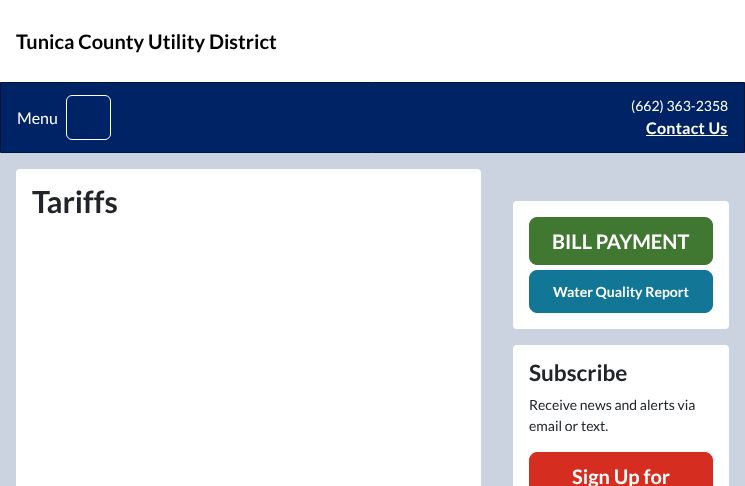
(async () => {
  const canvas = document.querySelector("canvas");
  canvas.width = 745;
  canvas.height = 486;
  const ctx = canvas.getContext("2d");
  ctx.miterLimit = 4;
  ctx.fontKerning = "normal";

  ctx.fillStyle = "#ccd3e0";
  ctx.fillRect(0, 0, 745, 486);
  ctx.fillStyle = "#ffffff";
  ctx.fillRect(0, 0, 745, 82);
  ctx.fillStyle = "#002366";
  ctx.beginPath();
  ctx.rect(0.5, 82.5, 744, 70);
  ctx.fill();
  ctx.strokeStyle = "#00153d";
  ctx.stroke();
  ctx.beginPath();
  ctx.roundRect(66.5, 95.5, 44, 44, 5.5);
  ctx.strokeStyle = "#ffffff";
  ctx.stroke();
  ctx.fillStyle = "#ffffff";
  ctx.fillRect(646, 135, 82, 1);
  ctx.beginPath();
  ctx.roundRect(16, 169, 465, 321, 4);
  ctx.fill();
  ctx.beginPath();
  ctx.roundRect(513, 201, 216, 128, 4);
  ctx.fill();
  ctx.fillStyle = "#417831";
  ctx.beginPath();
  ctx.roundRect(529.5, 217.5, 183, 47, 7.5);
  ctx.fill();
  ctx.strokeStyle = "#417831";
  ctx.stroke();
  ctx.fillStyle = "#127696";
  ctx.beginPath();
  ctx.roundRect(529.5, 270.5, 183, 42, 7.5);
  ctx.fill();
  ctx.strokeStyle = "#127696";
  ctx.stroke();
  ctx.fillStyle = "#ffffff";
  ctx.beginPath();
  ctx.roundRect(513, 345, 216, 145, 4);
  ctx.fill();
  ctx.fillStyle = "#d52e20";
  ctx.beginPath();
  ctx.roundRect(529.5, 452.5, 183, 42, 7.5);
  ctx.fill();
  ctx.strokeStyle = "#d52e20";
  ctx.stroke();
  ctx.font = "bold 20px Lato";
  ctx.fillStyle = "#000000";
  ctx.fillText("Tunica County Utility District", 16, 49);
  ctx.font = "16px Lato";
  ctx.fillStyle = "#ffffff";
  ctx.fillText("Menu", 17, 124);
  ctx.font = "14px Lato";
  ctx.fillText("(662) 363-2358", 631, 111);
  ctx.letterSpacing = "0.25px";
  ctx.font = "bold 16px Lato";
  ctx.fillText("Contact Us", 646, 134);
  ctx.letterSpacing = "0px";
  ctx.font = "bold 30.5px Lato";
  ctx.fillStyle = "#212529";
  ctx.fillText("Tariffs", 32, 213);
  ctx.font = "bold 20px Lato";
  ctx.fillStyle = "#ffffff";
  ctx.fillText("BILL PAYMENT", 552, 249);
  ctx.font = "bold 14px Lato";
  ctx.fillText("Water Quality Report", 553, 297);
  ctx.font = "bold 22.5px Lato";
  ctx.fillStyle = "#212529";
  ctx.fillText("Subscribe", 529, 381);
  ctx.font = "14px Lato";
  ctx.fillText("Receive news and alerts via", 529, 410);
  ctx.fillText("email or text.", 529, 431);
  ctx.font = "bold 20px Lato";
  ctx.fillStyle = "#ffffff";
  ctx.fillText("Sign Up for", 572, 484);
})();
